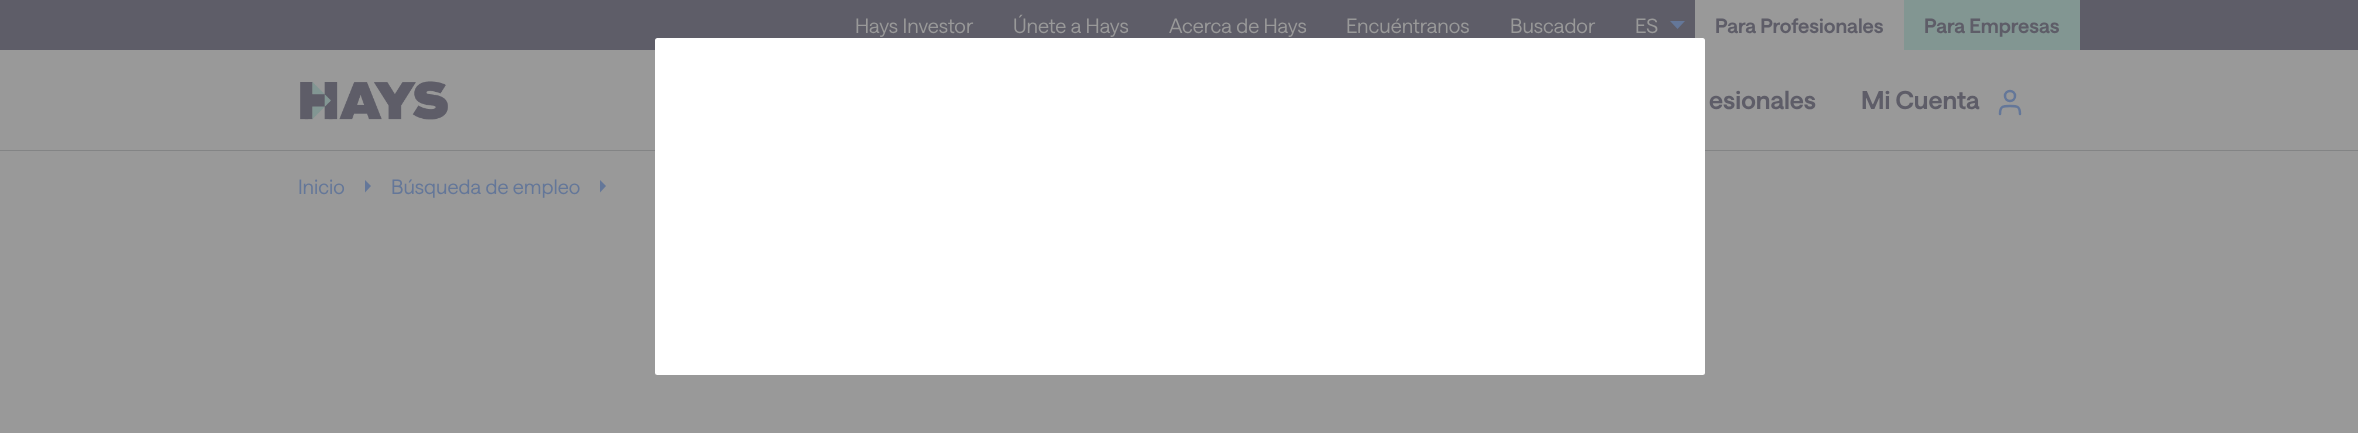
(async () => {
  const canvas = document.querySelector("canvas");
  canvas.width = 2358;
  canvas.height = 433;
  const ctx = canvas.getContext("2d");
  ctx.miterLimit = 4;
  ctx.fontKerning = "normal";
  async function loadImage(src) {
    const img = new Image();
    img.src = src;
    await img.decode();
    return img;
  }
  let path;

  ctx.fillStyle = "#999999";
  ctx.fillRect(0, 0, 2358, 433);
  ctx.fillStyle = "#5e5d68";
  ctx.fillRect(0, 0, 2358, 50);
  ctx.fillStyle = "#647799";
  path = new Path2D("M1670 21H1685L1677.5 29Z");
  ctx.fill(path);
  for (const [x, y, w, h, color] of [
    [1695, 0, 209, 50, "#999999"],
    [1904, 0, 176, 50, "#829692"],
    [0, 150, 2358, 1, "#838485"],
  ]) {
    ctx.fillStyle = color;
    ctx.fillRect(x, y, w, h);
  }
  ctx.drawImage(await loadImage("img/1.png"), 300, 81, 148, 39);
  path = new Path2D("M2020 114C2020 106 2017 106 2010 106C2003 106 2000 106 2000 114");
  ctx.strokeStyle = "#647799";
  ctx.lineWidth = 2.5;
  ctx.lineCap = "round";
  ctx.lineJoin = "round";
  ctx.stroke(path);
  ctx.beginPath();
  ctx.arc(2010, 96, 5, 0, Math.PI * 2);
  ctx.stroke();
  ctx.fillStyle = "#647799";
  path = new Path2D("M365 192.5V180L371 186Z");
  ctx.fill(path);
  path = new Path2D("M600 192.5V180L606 186Z");
  ctx.fill(path);
  ctx.fillStyle = "#ffffff";
  ctx.beginPath();
  ctx.roundRect(655, 38, 1050, 337, 2.5);
  ctx.fill();
  ctx.font = "20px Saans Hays";
  ctx.fillStyle = "#999999";
  for (const [text, x, y] of [
    ["Hays Investor", 855, 33],
    ["Únete a Hays", 1013, 33],
    ["Acerca de Hays", 1169, 33],
    ["Encuéntranos", 1346, 33],
    ["Buscador", 1510, 33],
    ["ES", 1635, 33],
  ]) {
    ctx.fillText(text, x, y);
  }
  ctx.font = "600 20px Saans Hays";
  ctx.fillStyle = "#5e5d68";
  ctx.fillText("Para Profesionales", 1715, 33);
  ctx.fillText("Para Empresas", 1924, 33);
  ctx.font = "600 25px Saans Hays";
  ctx.fillText("esionales", 1709, 109);
  ctx.fillText("Mi Cuenta", 1861, 109);
  ctx.font = "20px Saans Hays";
  ctx.fillStyle = "#647799";
  ctx.fillText("Inicio", 298, 194);
  ctx.fillText("Búsqueda de empleo", 391, 194);
})();
